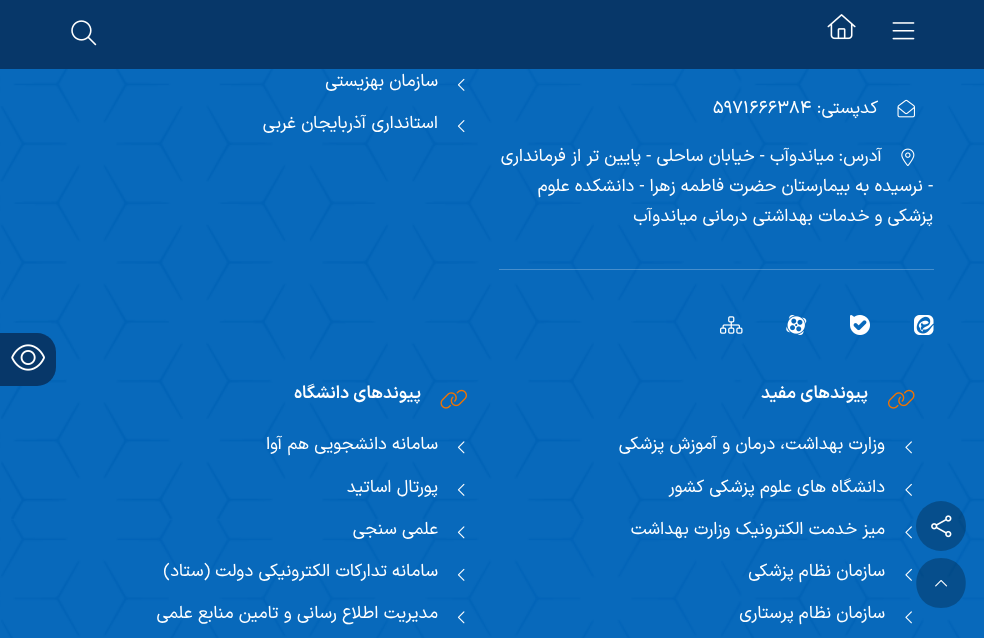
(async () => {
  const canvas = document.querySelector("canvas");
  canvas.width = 984;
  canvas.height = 638;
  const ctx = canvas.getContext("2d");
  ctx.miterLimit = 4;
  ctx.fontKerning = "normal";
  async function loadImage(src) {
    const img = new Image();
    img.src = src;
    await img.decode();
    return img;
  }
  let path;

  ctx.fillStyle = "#0869bb";
  ctx.fillRect(0, 0, 984, 638);
  ctx.fillStyle = "#073769";
  ctx.fillRect(0, 0, 984, 69);
  ctx.drawImage(await loadImage("img/1.png"), 892, 22, 23, 18);
  ctx.drawImage(await loadImage("img/2.png"), 827, 14, 29, 26);
  ctx.drawImage(await loadImage("img/3.png"), 71, 20, 26, 26);
  ctx.drawImage(await loadImage("img/4.png"), 0, 69, 984, 569);
  ctx.drawImage(await loadImage("img/5.png"), 897, 99, 18, 19);
  ctx.drawImage(await loadImage("img/6.png"), 901, 148, 14, 18);
  ctx.fillStyle = "rgba(255, 255, 255, 0.25)";
  ctx.fillRect(499, 269, 435, 1);
  ctx.drawImage(await loadImage("img/7.png"), 913, 315, 21, 20);
  ctx.drawImage(await loadImage("img/8.png"), 850, 315, 20, 20);
  ctx.drawImage(await loadImage("img/9.png"), 786, 315, 21, 20);
  ctx.drawImage(await loadImage("img/10.png"), 720, 316, 23, 18);
  ctx.drawImage(await loadImage("img/11.png"), 457, 78, 8, 13);
  ctx.drawImage(await loadImage("img/12.png"), 457, 120, 8, 13);
  ctx.drawImage(await loadImage("img/13.png"), 888, 389, 27, 20);
  ctx.drawImage(await loadImage("img/14.png"), 905, 441, 7, 13);
  ctx.drawImage(await loadImage("img/15.png"), 905, 483, 7, 13);
  ctx.drawImage(await loadImage("img/16.png"), 905, 526, 7, 13);
  ctx.drawImage(await loadImage("img/17.png"), 905, 568, 7, 13);
  ctx.drawImage(await loadImage("img/18.png"), 905, 611, 7, 13);
  ctx.drawImage(await loadImage("img/19.png"), 440, 389, 27, 20);
  ctx.drawImage(await loadImage("img/20.png"), 457, 441, 8, 13);
  ctx.drawImage(await loadImage("img/21.png"), 457, 483, 8, 13);
  ctx.drawImage(await loadImage("img/22.png"), 457, 526, 8, 13);
  ctx.drawImage(await loadImage("img/21.png"), 457, 568, 8, 13);
  ctx.drawImage(await loadImage("img/23.png"), 457, 611, 8, 13);
  ctx.fillStyle = "#073769";
  ctx.beginPath();
  ctx.roundRect(0, 333, 56, 53, [0, 19, 19, 0]);
  ctx.fill();
  ctx.drawImage(await loadImage("img/24.png"), 11, 344, 34, 27);
  ctx.fillStyle = "rgba(0, 0, 0, 0.25)";
  ctx.beginPath();
  ctx.arc(941, 526, 25, 0, Math.PI * 2);
  ctx.fill();
  ctx.drawImage(await loadImage("img/25.png"), 931, 515, 21, 23);
  path = new Path2D("M941 608C908 608 908 558 941 558C974 558 974 608 941 608Z");
  ctx.fill(path);
  ctx.drawImage(await loadImage("img/26.png"), 935, 580, 13, 7);
  ctx.direction = "rtl";
  ctx.font = "17.5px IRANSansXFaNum";
  ctx.fillStyle = "#ffffff";
  ctx.fillText("کدپستی:", 878, 113);
  ctx.direction = "ltr";
  ctx.fillText("5971666384", 713, 113);
  ctx.direction = "rtl";
  for (const [text, x, y] of [
    ["آدرس:", 882, 161],
    ["میاندوآب - خیابان ساحلی - پایین تر از فرمانداری", 834, 161],
    ["- نرسیده به بیمارستان حضرت فاطمه زهرا - دانشکده علوم", 933, 191],
    ["پزشکی و خدمات بهداشتی درمانی میاندوآب", 933, 221],
    ["سازمان بهزیستی", 438, 86],
    ["استانداری آذربایجان غربی", 438, 128],
  ]) {
    ctx.fillText(text, x, y);
  }
  ctx.font = "600 17.5px IRANSansXFaNum";
  ctx.fillText("پیوندهای", 868, 398);
  ctx.fillText("مفید", 796, 398);
  ctx.font = "17.5px IRANSansXFaNum";
  for (const [text, x, y] of [
    ["وزارت بهداشت، درمان و آموزش پزشکی", 885, 449],
    ["دانشگاه های علوم پزشکی کشور", 885, 492],
    ["میز خدمت الکترونیک وزارت بهداشت", 885, 534],
    ["سازمان نظام پزشکی", 885, 576],
    ["سازمان نظام پرستاری", 885, 618],
  ]) {
    ctx.fillText(text, x, y);
  }
  ctx.font = "600 17.5px IRANSansXFaNum";
  ctx.fillText("پیوندهای دانشگاه", 421, 398);
  ctx.font = "17.5px IRANSansXFaNum";
  for (const [text, x, y] of [
    ["سامانه دانشجویی هم آوا", 438, 449],
    ["پورتال اساتید", 438, 492],
    ["علمی سنجی", 438, 534],
    ["سامانه تدارکات الکترونیکی دولت (ستاد)", 438, 576],
    ["مدیریت اطلاع رسانی و تامین منابع علمی", 438, 618],
  ]) {
    ctx.fillText(text, x, y);
  }
})();
